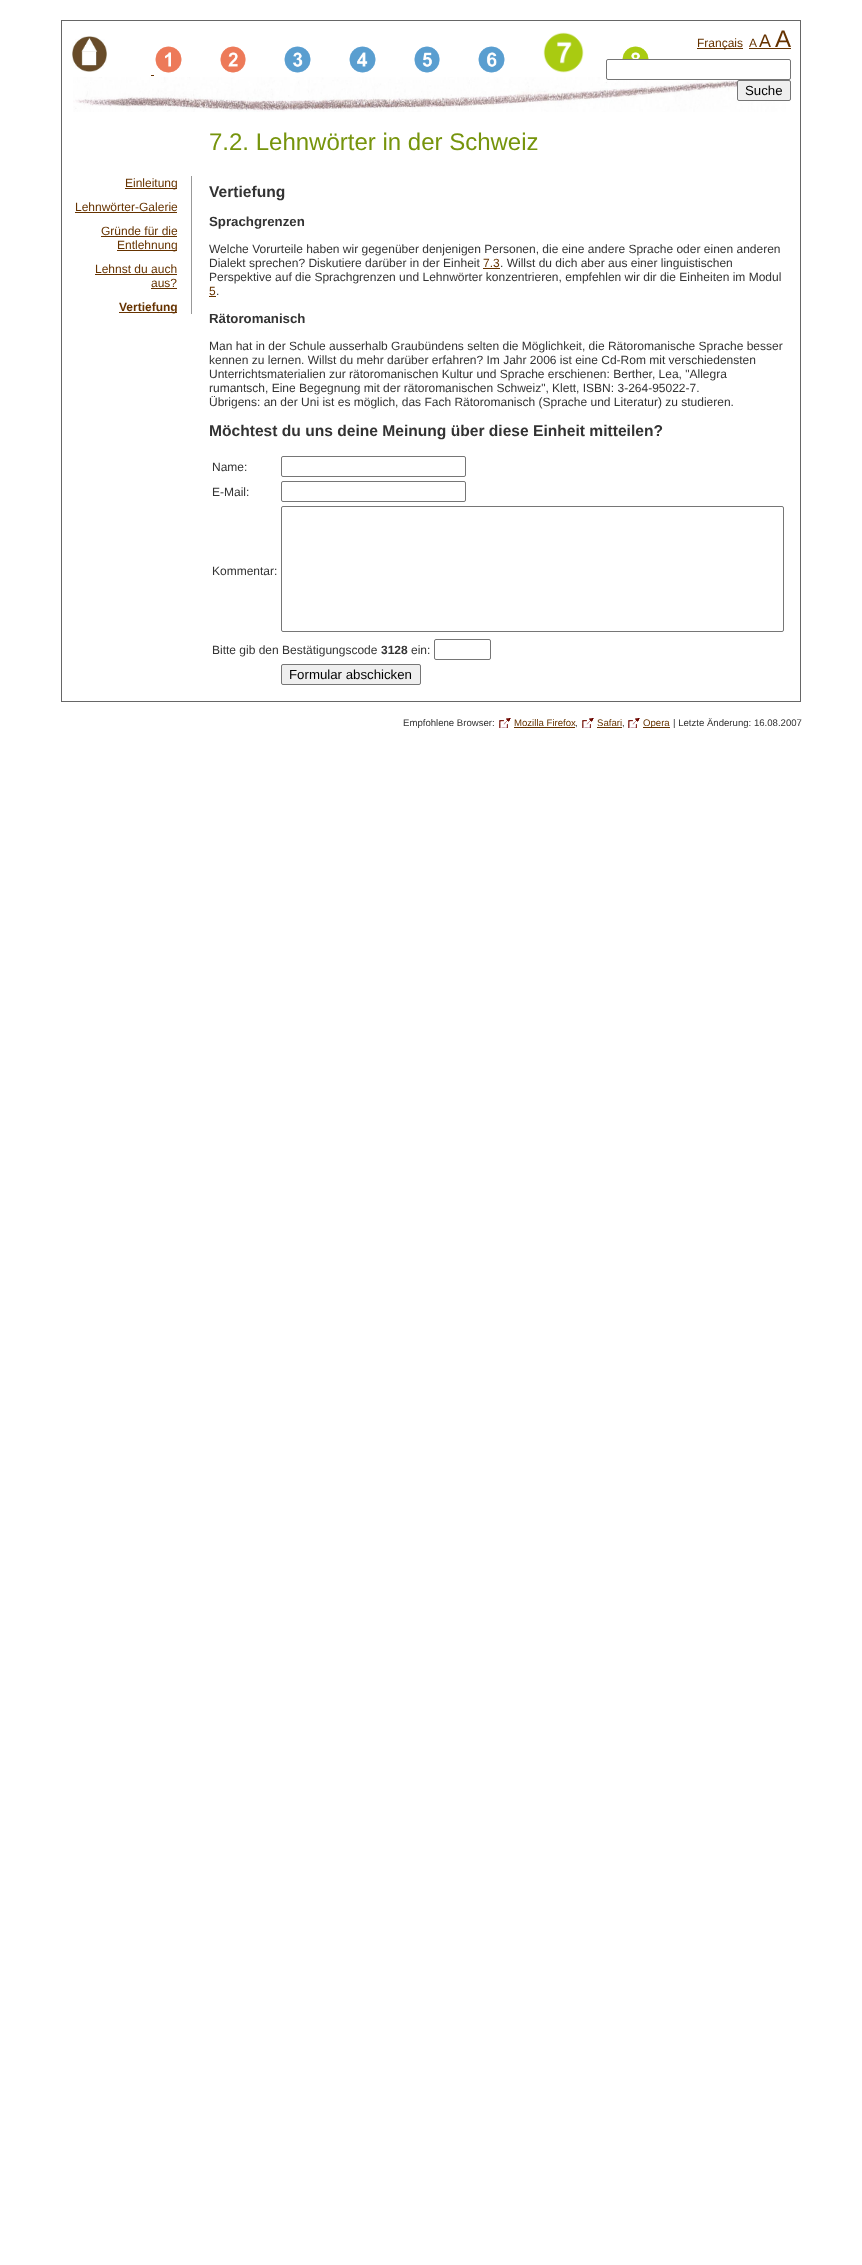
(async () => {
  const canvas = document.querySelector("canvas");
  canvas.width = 862;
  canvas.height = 2265;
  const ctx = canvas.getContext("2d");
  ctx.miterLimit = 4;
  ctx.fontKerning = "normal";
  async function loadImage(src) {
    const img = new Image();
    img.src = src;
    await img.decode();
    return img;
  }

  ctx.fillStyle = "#ffffff";
  ctx.fillRect(0, 0, 862, 2265);
  ctx.strokeStyle = "#666666";
  ctx.strokeRect(61.5, 20.5, 739, 681);
  ctx.drawImage(await loadImage("img/1.png"), 72, 36, 35, 36);
  ctx.drawImage(await loadImage("img/2.png"), 155, 46, 27, 27);
  ctx.drawImage(await loadImage("img/3.png"), 220, 46, 26, 27);
  ctx.drawImage(await loadImage("img/4.png"), 284, 46, 27, 27);
  ctx.drawImage(await loadImage("img/5.png"), 349, 46, 27, 27);
  ctx.drawImage(await loadImage("img/6.png"), 414, 46, 26, 27);
  ctx.drawImage(await loadImage("img/7.png"), 478, 46, 27, 27);
  ctx.drawImage(await loadImage("img/8.png"), 543, 32, 41, 41);
  ctx.drawImage(await loadImage("img/9.png"), 622, 46, 27, 13);
  ctx.fillStyle = "#663300";
  ctx.fillRect(697, 48, 46, 1);
  ctx.fillRect(749, 48, 42, 1);
  ctx.drawImage(await loadImage("img/10.png"), 73, 77, 713, 35);
  ctx.fillStyle = "#ffffff";
  ctx.beginPath();
  ctx.roundRect(606.5, 59.5, 184, 20, 1.5);
  ctx.fill();
  ctx.strokeStyle = "#767676";
  ctx.stroke();
  ctx.fillStyle = "#efefef";
  ctx.beginPath();
  ctx.roundRect(737.5, 80.5, 53, 20, 1.5);
  ctx.fill();
  ctx.stroke();
  for (const [x, y, w, h, color] of [
    [151, 75, 3, 1, "#663300"],
    [191, 176, 1, 138, "#999999"],
    [125, 188, 52, 1, "#663300"],
    [75, 212, 102, 1, "#663300"],
    [101, 236, 76, 1, "#663300"],
    [117, 250, 60, 1, "#663300"],
    [95, 274, 82, 1, "#663300"],
    [151, 288, 26, 1, "#663300"],
    [119, 312, 58, 1, "#663300"],
    [483, 268, 17, 1, "#663300"],
    [209, 296, 7, 1, "#663300"],
  ]) {
    ctx.fillStyle = color;
    ctx.fillRect(x, y, w, h);
  }
  ctx.beginPath();
  ctx.roundRect(281.5, 456.5, 184, 20, 1.5);
  ctx.stroke();
  ctx.beginPath();
  ctx.roundRect(281.5, 481.5, 184, 20, 1.5);
  ctx.stroke();
  ctx.beginPath();
  ctx.roundRect(281.5, 506.5, 502, 125, 1.5);
  ctx.stroke();
  ctx.beginPath();
  ctx.roundRect(434.5, 639.5, 56, 20, 1.5);
  ctx.stroke();
  ctx.fillStyle = "#efefef";
  ctx.beginPath();
  ctx.roundRect(281.5, 664.5, 139, 20, 1.5);
  ctx.fill();
  ctx.stroke();
  ctx.drawImage(await loadImage("img/11.png"), 499, 718, 12, 10);
  ctx.fillStyle = "#663300";
  ctx.fillRect(514, 727, 61, 1);
  ctx.drawImage(await loadImage("img/11.png"), 582, 718, 12, 10);
  ctx.fillRect(597, 727, 25, 1);
  ctx.drawImage(await loadImage("img/11.png"), 628, 718, 12, 10);
  ctx.fillRect(643, 727, 27, 1);
  ctx.font = "12px Liberation Sans";
  ctx.fillText("Français", 697, 47);
  ctx.fillText("A", 749, 47);
  ctx.font = "18px Liberation Sans";
  ctx.fillText("A", 759, 47);
  ctx.font = "24px Liberation Sans";
  ctx.fillText("A", 775, 47);
  ctx.font = "13.25px Liberation Sans";
  ctx.fillStyle = "#000000";
  ctx.fillText("Suche", 745, 95);
  ctx.font = "24px Liberation Sans";
  ctx.fillStyle = "#76940c";
  ctx.fillText("7.2. Lehnwörter in der Schweiz", 209, 150);
  ctx.font = "12px Liberation Sans";
  ctx.fillStyle = "#663300";
  for (const [text, x, y] of [
    ["Einleitung", 125, 187],
    ["Lehnwörter-Galerie", 75, 211],
    ["Gründe für die", 101, 235],
    ["Entlehnung", 117, 249],
    ["Lehnst du auch", 95, 273],
    ["aus?", 151, 287],
  ]) {
    ctx.fillText(text, x, y);
  }
  ctx.font = "bold 12px Liberation Sans";
  ctx.fillText("Vertiefung", 119, 311);
  ctx.font = "bold 15.6px Liberation Sans";
  ctx.fillStyle = "#333333";
  ctx.fillText("Vertiefung", 209, 197);
  ctx.font = "bold 13.25px Liberation Sans";
  ctx.fillText("Sprachgrenzen", 209, 226);
  ctx.font = "12px Liberation Sans";
  ctx.fillText("Welche Vorurteile haben wir gegenüber denjenigen Personen, die eine andere Sprache oder einen anderen", 209, 253);
  ctx.fillText("Dialekt sprechen? Diskutiere darüber in der Einheit", 209, 267);
  ctx.fillStyle = "#663300";
  ctx.fillText("7.3", 483, 267);
  ctx.fillStyle = "#333333";
  ctx.fillText(". Willst du dich aber aus einer linguistischen", 500, 267);
  ctx.fillText("Perspektive auf die Sprachgrenzen und Lehnwörter konzentrieren, empfehlen wir dir die Einheiten im Modul", 209, 281);
  ctx.fillStyle = "#663300";
  ctx.fillText("5", 209, 295);
  ctx.fillStyle = "#333333";
  ctx.fillText(".", 216, 295);
  ctx.font = "bold 13.25px Liberation Sans";
  ctx.fillText("Rätoromanisch", 209, 323);
  ctx.font = "12px Liberation Sans";
  for (const [text, x, y] of [
    ["Man hat in der Schule ausserhalb Graubündens selten die Möglichkeit, die Rätoromanische Sprache besser", 209, 350],
    ["kennen zu lernen. Willst du mehr darüber erfahren? Im Jahr 2006 ist eine Cd-Rom mit verschiedensten", 209, 364],
    ["Unterrichtsmaterialien zur rätoromanischen Kultur und Sprache erschienen: Berther, Lea, \"Allegra", 209, 378],
    ["rumantsch, Eine Begegnung mit der rätoromanischen Schweiz\", Klett, ISBN: 3-264-95022-7.", 209, 392],
    ["Übrigens: an der Uni ist es möglich, das Fach Rätoromanisch (Sprache und Literatur) zu studieren.", 209, 406],
  ]) {
    ctx.fillText(text, x, y);
  }
  ctx.font = "bold 15.6px Liberation Sans";
  ctx.fillText("Möchtest du uns deine Meinung über diese Einheit mitteilen?", 209, 436);
  ctx.font = "12px Liberation Sans";
  for (const [text, x, y] of [
    ["Name:", 212, 471],
    ["E-Mail:", 212, 496],
    ["Kommentar:", 212, 575],
    ["Bitte gib den Bestätigungscode", 212, 654],
  ]) {
    ctx.fillText(text, x, y);
  }
  ctx.font = "bold 12px Liberation Sans";
  ctx.fillText("3128", 381, 654);
  ctx.font = "12px Liberation Sans";
  ctx.fillText("ein:", 411, 654);
  ctx.font = "13.25px Liberation Sans";
  ctx.fillStyle = "#000000";
  ctx.fillText("Formular abschicken", 289, 679);
  ctx.font = "9.6px Liberation Sans";
  ctx.fillStyle = "#333333";
  ctx.fillText("Empfohlene Browser:", 403, 726);
  ctx.fillStyle = "#663300";
  ctx.fillText("Mozilla Firefox", 514, 726);
  ctx.fillStyle = "#333333";
  ctx.fillText(",", 575, 726);
  ctx.fillStyle = "#663300";
  ctx.fillText("Safari", 597, 726);
  ctx.fillStyle = "#333333";
  ctx.fillText(",", 622, 726);
  ctx.fillStyle = "#663300";
  ctx.fillText("Opera", 643, 726);
  ctx.fillStyle = "#333333";
  ctx.fillText("| Letzte Änderung: 16.08.2007", 673, 726);
})();
